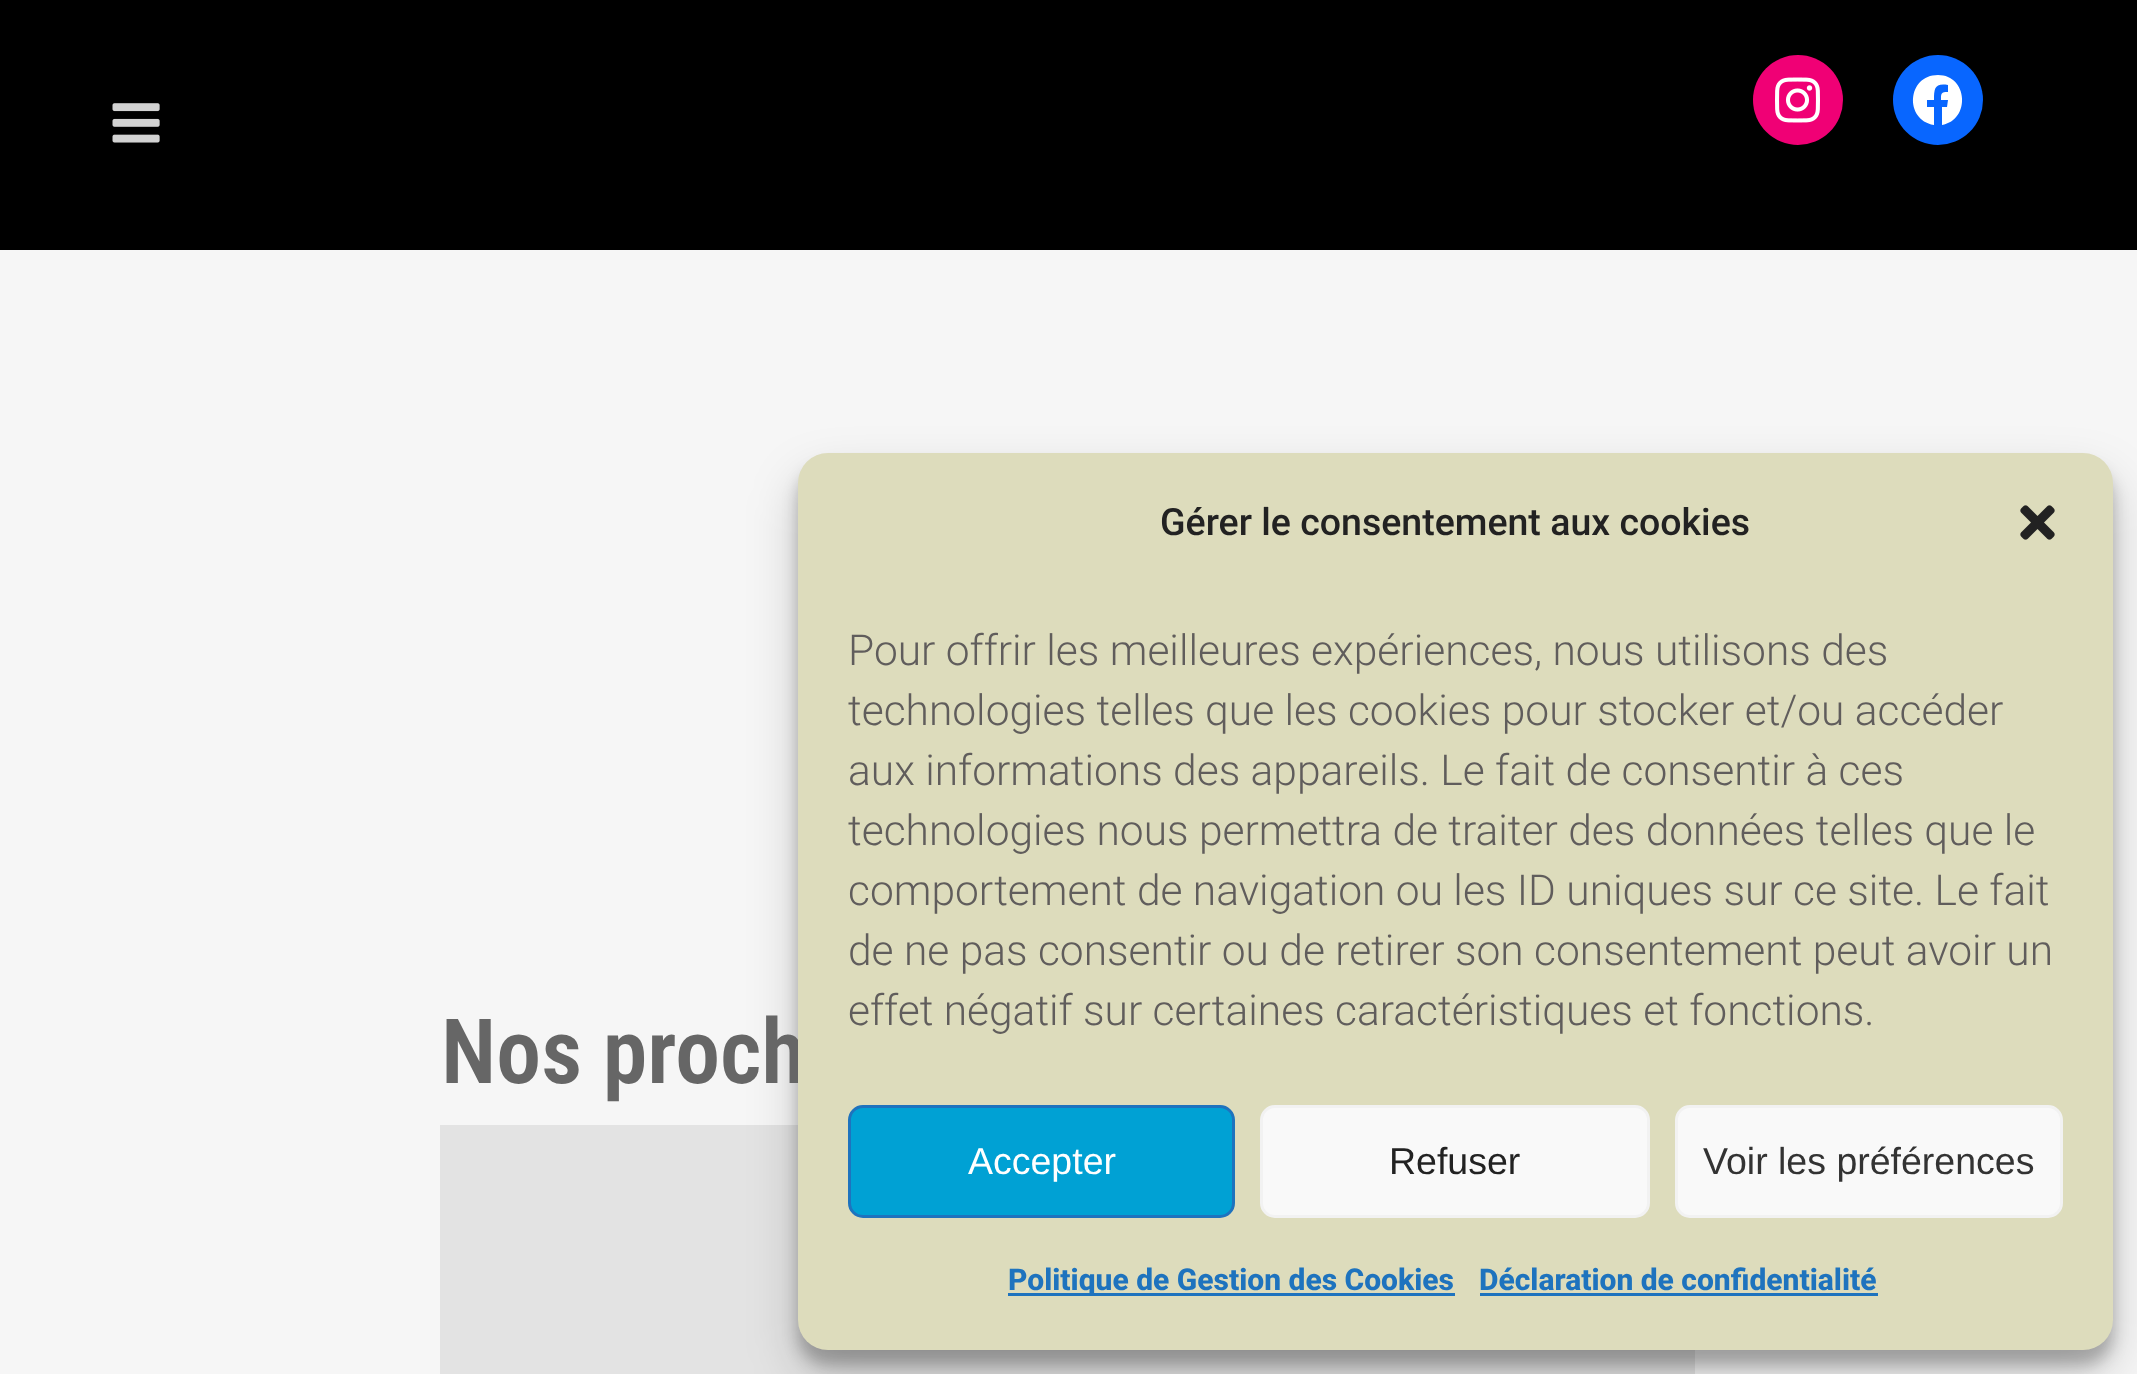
(async () => {
  const canvas = document.querySelector("canvas");
  canvas.width = 2137;
  canvas.height = 1374;
  const ctx = canvas.getContext("2d");
  ctx.miterLimit = 4;
  ctx.fontKerning = "normal";
  async function loadImage(src) {
    const img = new Image();
    img.src = src;
    await img.decode();
    return img;
  }
  let path;

  ctx.fillStyle = "#f6f6f6";
  ctx.fillRect(0, 0, 2137, 1374);
  ctx.fillStyle = "#000000";
  ctx.fillRect(0, 0, 2137, 250);
  ctx.drawImage(await loadImage("img/1.png"), 112, 103, 48, 40);
  ctx.fillStyle = "#f00075";
  ctx.beginPath();
  ctx.arc(1798, 100, 45, 0, Math.PI * 2);
  ctx.fill();
  ctx.drawImage(await loadImage("img/2.png"), 1775, 77, 45, 46);
  ctx.fillStyle = "#0866ff";
  ctx.beginPath();
  ctx.arc(1938, 100, 45, 0, Math.PI * 2);
  ctx.fill();
  ctx.fillStyle = "#ffffff";
  path = new Path2D("M1938 75C1907 75 1904 120 1934 125V107H1927V100H1934C1934 88 1935 83 1948 85V92C1941 92 1941 93 1941 100H1948L1947 107H1942V125C1971 120 1968 75 1938 75Z");
  ctx.fill(path);
  ctx.fillStyle = "#e3e3e3";
  ctx.fillRect(440, 1125, 1255, 249);
  ctx.fillStyle = "rgba(0, 0, 0, 0.23)";
  ctx.filter = "blur(7.5px)";
  ctx.beginPath();
  ctx.roundRect(798, 468, 1315, 897, 30);
  ctx.fill();
  ctx.filter = "none";
  ctx.fillStyle = "rgba(0, 0, 0, 0.19)";
  ctx.filter = "blur(25px)";
  ctx.beginPath();
  ctx.roundRect(798, 478, 1315, 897, 30);
  ctx.fill();
  ctx.filter = "none";
  ctx.font = "600 90px Roboto Condensed";
  ctx.fillStyle = "#666666";
  ctx.fillText("Nos proch", 441, 1083);
  ctx.fillStyle = "#dddcbc";
  ctx.beginPath();
  ctx.roundRect(798, 453, 1315, 897, 30);
  ctx.fill();
  ctx.font = "500 37.5px Roboto";
  ctx.fillStyle = "#222222";
  ctx.fillText("Gérer le consentement aux cookies", 1160, 535);
  ctx.drawImage(await loadImage("img/3.png"), 2020, 505, 35, 35);
  ctx.font = "300 42.5px Roboto";
  ctx.fillStyle = "#605d5c";
  for (const [text, x, y] of [
    ["Pour offrir les meilleures expériences, nous utilisons des", 848, 665],
    ["technologies telles que les cookies pour stocker et/ou accéder", 848, 725],
    ["aux informations des appareils. Le fait de consentir à ces", 848, 785],
    ["technologies nous permettra de traiter des données telles que le", 848, 845],
    ["comportement de navigation ou les ID uniques sur ce site. Le fait", 848, 905],
    ["de ne pas consentir ou de retirer son consentement peut avoir un", 848, 965],
    ["effet négatif sur certaines caractéristiques et fonctions.", 848, 1025],
  ]) {
    ctx.fillText(text, x, y);
  }
  ctx.fillStyle = "#00a1d4";
  ctx.beginPath();
  ctx.roundRect(849.5, 1106.5, 384, 110, 13.5);
  ctx.fill();
  ctx.strokeStyle = "#1e73be";
  ctx.lineWidth = 3;
  ctx.stroke();
  ctx.font = "37.5px Liberation Sans";
  ctx.fillStyle = "#ffffff";
  ctx.fillText("Accepter", 968, 1174);
  ctx.fillStyle = "#f9f9f9";
  ctx.beginPath();
  ctx.roundRect(1261.5, 1106.5, 387, 110, 13.5);
  ctx.fill();
  ctx.strokeStyle = "#f2f2f2";
  ctx.stroke();
  ctx.fillStyle = "#222222";
  ctx.fillText("Refuser", 1389, 1174);
  ctx.fillStyle = "#f9f9f9";
  ctx.beginPath();
  ctx.roundRect(1676.5, 1106.5, 385, 110, 13.5);
  ctx.fill();
  ctx.stroke();
  ctx.fillStyle = "#333333";
  ctx.fillText("Voir les préférences", 1703, 1174);
  ctx.fillStyle = "#1e73be";
  ctx.fillRect(1008, 1293, 447, 3);
  ctx.font = "800 30px Roboto";
  ctx.fillText("Politique de Gestion des Cookies", 1008, 1290);
  ctx.fillText("Déclaration de confidentialité", 1479, 1290);
  ctx.fillRect(1480, 1293, 398, 3);
})();
